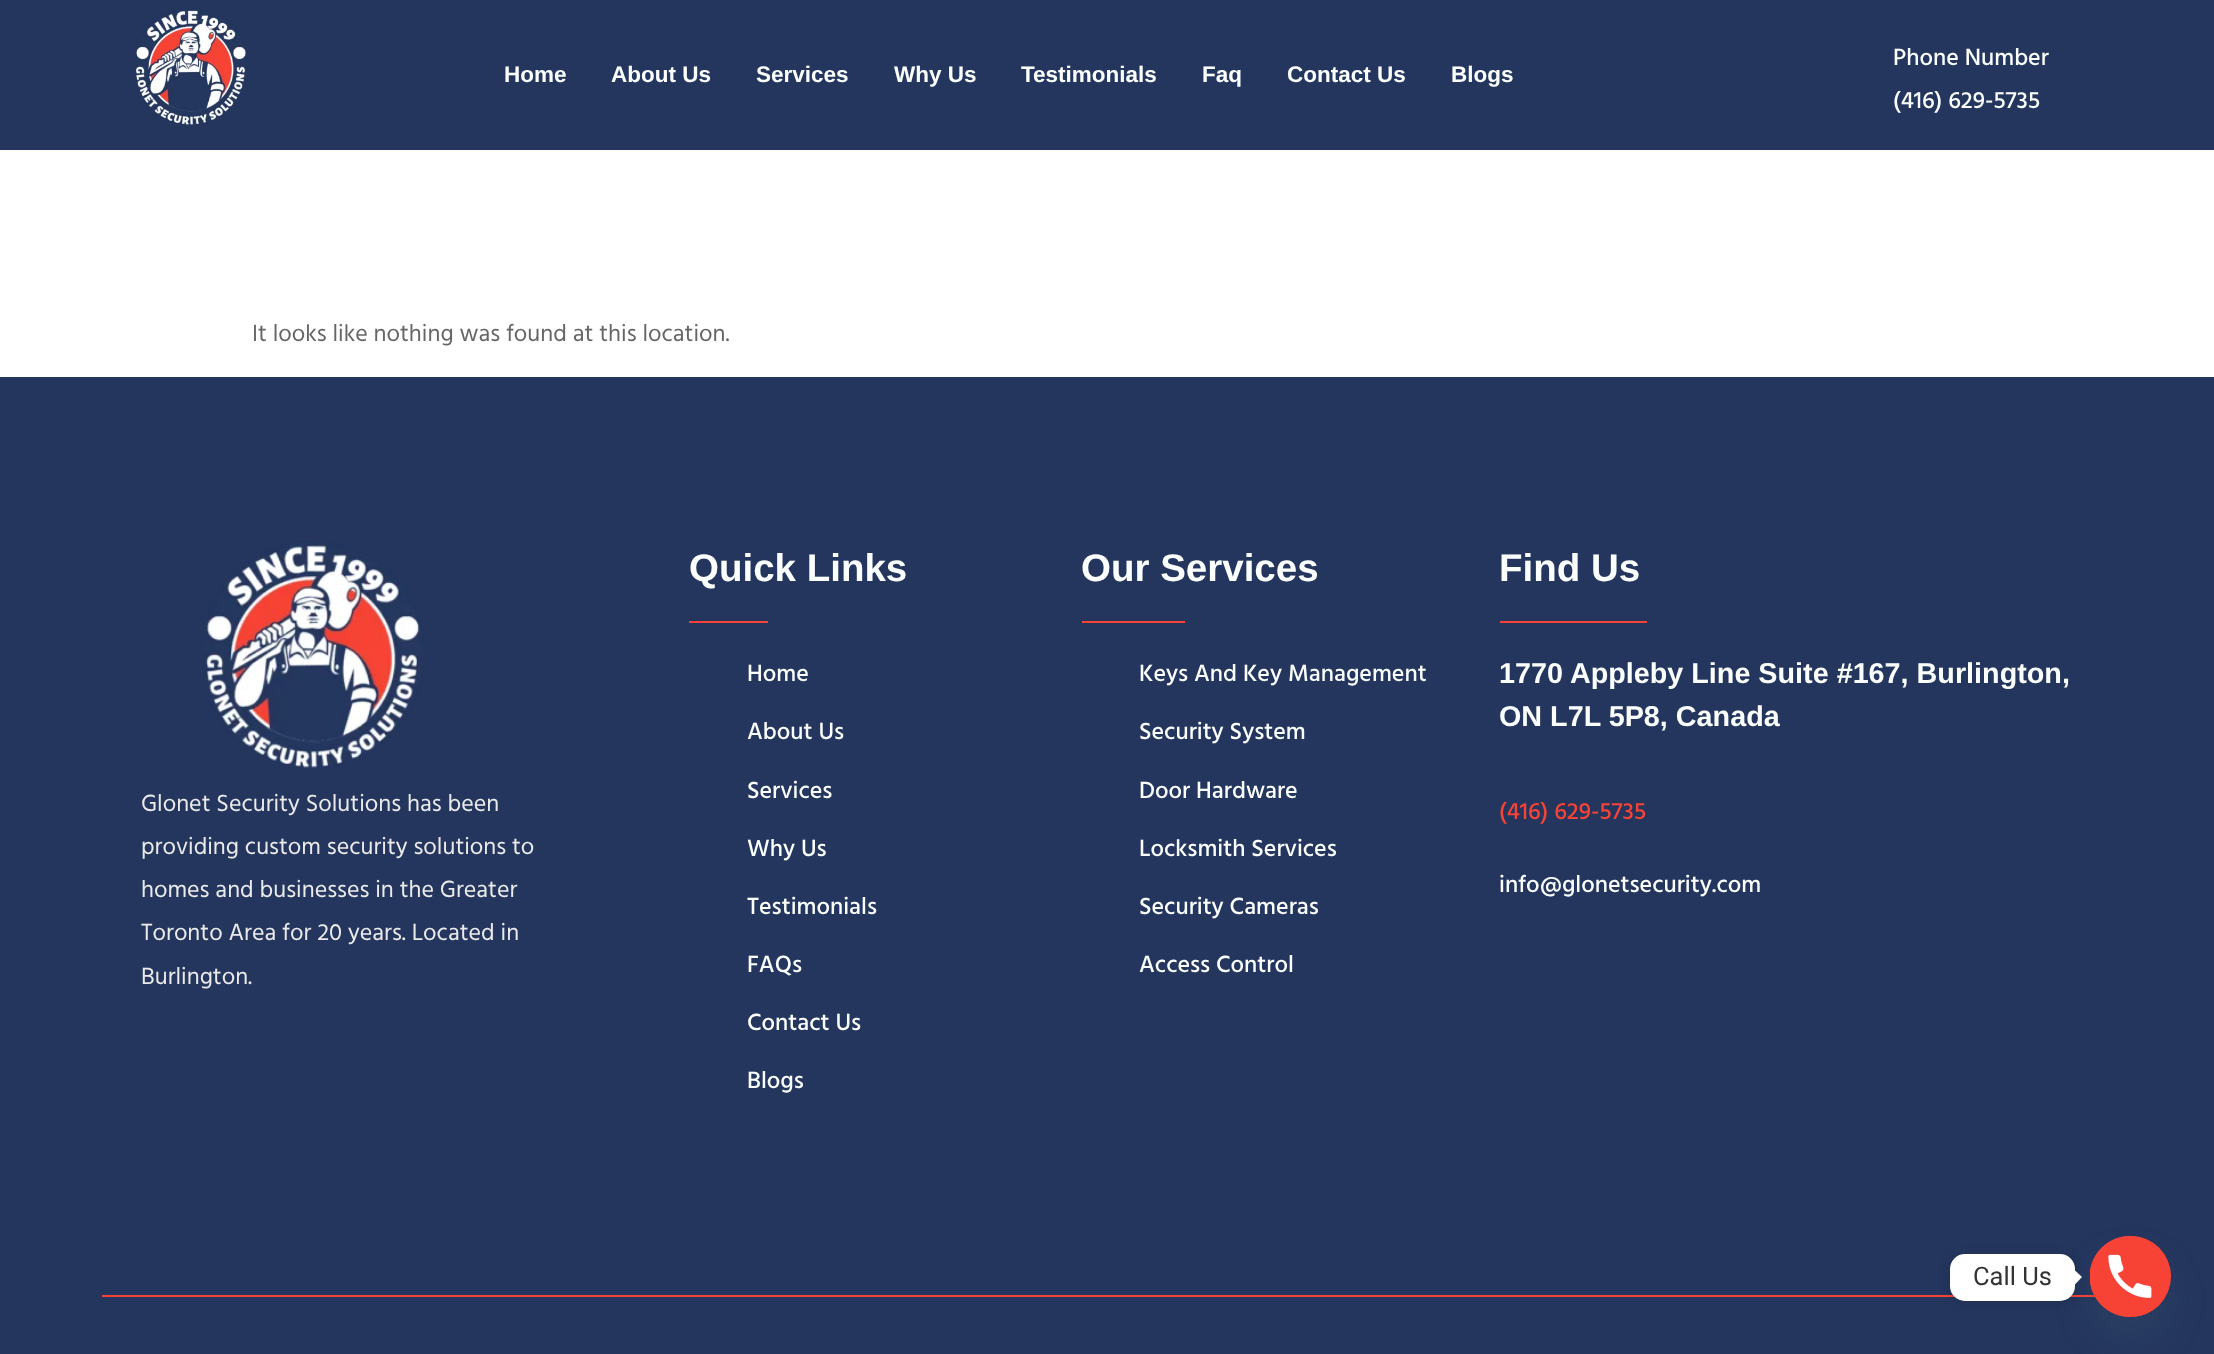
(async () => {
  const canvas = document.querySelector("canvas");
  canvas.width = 2214;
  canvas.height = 1354;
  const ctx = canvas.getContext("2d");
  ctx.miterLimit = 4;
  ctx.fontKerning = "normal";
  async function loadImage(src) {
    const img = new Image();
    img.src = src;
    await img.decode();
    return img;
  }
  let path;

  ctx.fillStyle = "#ffffff";
  ctx.fillRect(0, 0, 2214, 1354);
  ctx.fillStyle = "#24365e";
  ctx.fillRect(0, 0, 2214, 150);
  ctx.drawImage(await loadImage("img/1.png"), 135, 8, 113, 117);
  ctx.fillRect(0, 377, 2214, 977);
  ctx.drawImage(await loadImage("img/2.png"), 204, 541, 220, 227);
  for (const [x, y, w, h, color] of [
    [689, 621, 79, 2, "#f74335"],
    [1082, 621, 103, 2, "#f74335"],
    [1500, 621, 147, 2, "#f74335"],
    [102, 1295, 1994, 2, "#f74335"],
  ]) {
    ctx.fillStyle = color;
    ctx.fillRect(x, y, w, h);
  }
  ctx.fillStyle = "rgba(73, 104, 126, 0.16)";
  ctx.filter = "blur(18px)";
  ctx.beginPath();
  ctx.roundRect(2090, 1260, 81, 81, 40.5);
  ctx.fill();
  ctx.filter = "none";
  ctx.fillStyle = "#f74335";
  ctx.beginPath();
  ctx.arc(2130.5, 1276.5, 40.5, 0, Math.PI * 2);
  ctx.fill();
  ctx.drawImage(await loadImage("img/3.png"), 2090, 1236, 81, 81);
  ctx.fillStyle = "rgba(0, 0, 0, 0.15)";
  ctx.filter = "blur(6px)";
  ctx.beginPath();
  ctx.roundRect(1950, 1256, 125, 46, 15);
  ctx.fill();
  ctx.filter = "none";
  ctx.fillStyle = "#ffffff";
  ctx.beginPath();
  ctx.roundRect(1950, 1254, 125, 47, 15);
  ctx.fill();
  path = new Path2D("M2074.5 1285V1270L2082 1277Z");
  ctx.fill(path);
  ctx.font = "bold 22.5px Liberation Sans";
  ctx.fillStyle = "#fbfffd";
  for (const [text, x, y] of [
    ["Home", 504, 82],
    ["About Us", 611, 82],
    ["Services", 756, 82],
    ["Why Us", 894, 82],
    ["Testimonials", 1021, 82],
    ["Faq", 1202, 82],
    ["Contact Us", 1287, 82],
    ["Blogs", 1451, 82],
  ]) {
    ctx.fillText(text, x, y);
  }
  ctx.font = "500 24px Hind Madurai";
  ctx.fillText("Phone Number", 1893, 65);
  ctx.fillText("(416) 629-5735", 1893, 108);
  ctx.font = "24px Hind Madurai";
  ctx.fillStyle = "#666666";
  ctx.fillText("It looks like nothing was found at this location.", 252, 341);
  ctx.fillStyle = "#eaeaea";
  for (const [text, x, y] of [
    ["Glonet Security Solutions has been", 141, 811],
    ["providing custom security solutions to", 141, 854],
    ["homes and businesses in the Greater", 141, 897],
    ["Toronto Area for 20 years. Located in", 141, 940],
    ["Burlington.", 141, 984],
  ]) {
    ctx.fillText(text, x, y);
  }
  ctx.font = "bold 38.5px Liberation Sans";
  ctx.fillStyle = "#fbfffd";
  ctx.fillText("Quick Links", 689, 581);
  ctx.font = "500 24px Hind Madurai";
  for (const [text, x, y] of [
    ["Home", 747, 681],
    ["About Us", 747, 739],
    ["Services", 747, 798],
    ["Why Us", 747, 856],
    ["Testimonials", 747, 914],
    ["FAQs", 747, 972],
    ["Contact Us", 747, 1030],
    ["Blogs", 747, 1088],
  ]) {
    ctx.fillText(text, x, y);
  }
  ctx.font = "bold 38.5px Liberation Sans";
  ctx.fillText("Our Services", 1081, 581);
  ctx.font = "500 24px Hind Madurai";
  for (const [text, x, y] of [
    ["Keys And Key Management", 1139, 681],
    ["Security System", 1139, 739],
    ["Door Hardware", 1139, 798],
    ["Locksmith Services", 1139, 856],
    ["Security Cameras", 1139, 914],
    ["Access Control", 1139, 972],
  ]) {
    ctx.fillText(text, x, y);
  }
  ctx.font = "bold 38.5px Liberation Sans";
  ctx.fillText("Find Us", 1499, 581);
  ctx.font = "bold 28.75px Liberation Sans";
  ctx.fillText("1770 Appleby Line Suite #167, Burlington,", 1499, 683);
  ctx.fillText("ON L7L 5P8, Canada", 1499, 726);
  ctx.font = "500 24px Hind Madurai";
  ctx.fillStyle = "#f74335";
  ctx.fillText("(416) 629-5735", 1499, 819);
  ctx.fillStyle = "#fbfffd";
  ctx.fillText("info@glonetsecurity.com", 1499, 892);
  ctx.font = "25.5px Roboto";
  ctx.fillStyle = "#333333";
  ctx.fillText("Call Us", 1973, 1285);
})();
